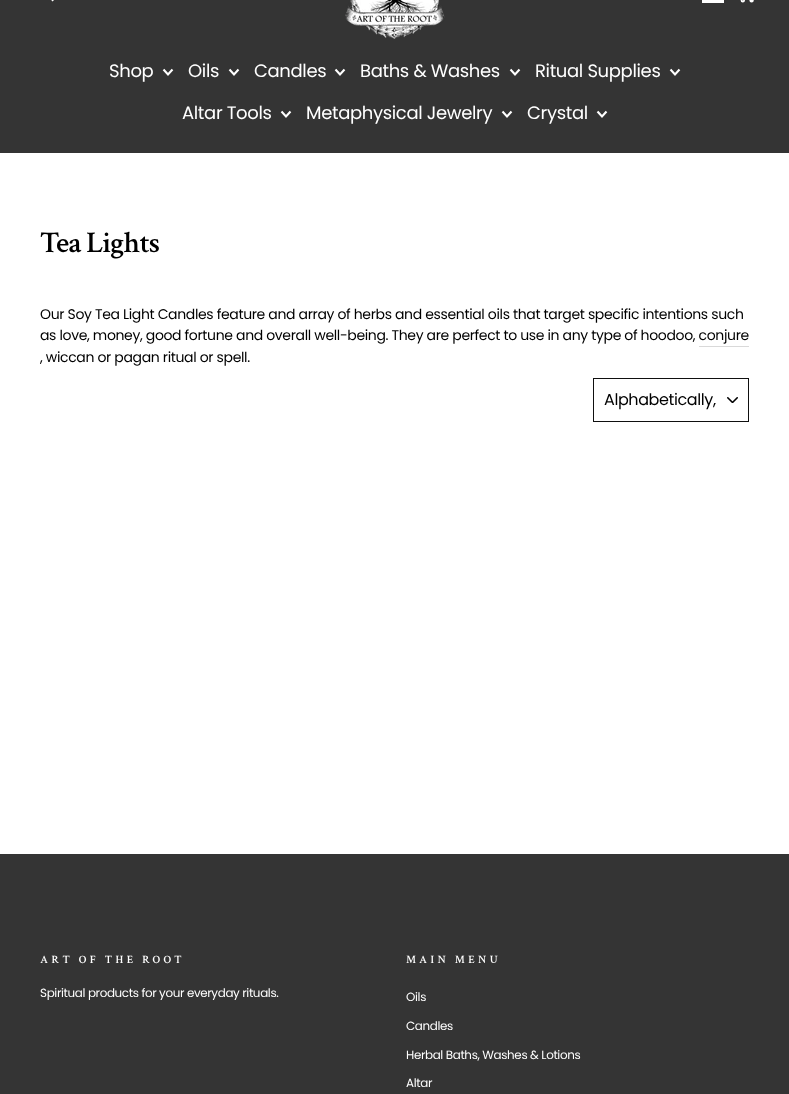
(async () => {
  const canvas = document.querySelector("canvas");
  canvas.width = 789;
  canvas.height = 1094;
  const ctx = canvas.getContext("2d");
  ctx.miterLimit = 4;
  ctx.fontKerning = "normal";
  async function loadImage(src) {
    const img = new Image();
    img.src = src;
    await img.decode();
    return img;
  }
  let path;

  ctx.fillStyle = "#ffffff";
  ctx.fillRect(0, 0, 789, 1094);
  ctx.fillStyle = "#343434";
  ctx.fillRect(0, 0, 789, 153);
  path = new Path2D("M50.5-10.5C50.5 0 34.5 0 34.5-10.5C34.5-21 50.5-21 50.5-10.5ZM53.5 .5L48.5-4.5");
  ctx.strokeStyle = "#ffffff";
  ctx.lineWidth = 2.6;
  ctx.stroke(path);
  ctx.drawImage(await loadImage("img/1.png"), 345, 0, 100, 39);
  ctx.fillStyle = "#ffffff";
  ctx.fillRect(702, 0, 22, 3);
  ctx.beginPath();
  ctx.arc(742.8, 0.2, 0.9, 0, Math.PI * 2);
  ctx.stroke();
  ctx.beginPath();
  ctx.arc(751.6, 0.2, 0.9, 0, Math.PI * 2);
  ctx.fill();
  ctx.stroke();
  path = new Path2D("M163.5 69.5L168 74.5L172.5 69.5");
  ctx.lineWidth = 2.1;
  ctx.stroke(path);
  path = new Path2D("M229.5 69.5L234 74.5L238.5 69.5");
  ctx.stroke(path);
  path = new Path2D("M335.5 69.5L340 74.5L344.5 69.5");
  ctx.stroke(path);
  path = new Path2D("M510.5 69.5L515 74.5L519.5 69.5");
  ctx.stroke(path);
  path = new Path2D("M670.5 69.5L675 74.5L679.5 69.5");
  ctx.stroke(path);
  path = new Path2D("M281.5 111.5L286 116.5L290.5 111.5");
  ctx.stroke(path);
  path = new Path2D("M502.5 111.5L507 116.5L511.5 111.5");
  ctx.stroke(path);
  path = new Path2D("M597.5 111.5L602 116.5L606.5 111.5");
  ctx.stroke(path);
  ctx.fillStyle = "#d9d9d9";
  ctx.fillRect(699, 346, 50, 1);
  ctx.drawImage(await loadImage("img/2.png"), 727, 397, 11, 6);
  ctx.strokeStyle = "#0f0f0f";
  ctx.lineWidth = 1;
  ctx.strokeRect(593.5, 378.5, 155, 43);
  ctx.fillStyle = "#343434";
  ctx.fillRect(0, 854, 789, 240);
  ctx.letterSpacing = "-0.35px";
  ctx.font = "18px Poppins";
  ctx.fillStyle = "#ffffff";
  for (const [text, x, y] of [
    ["Shop", 109, 77],
    ["Oils", 188, 77],
    ["Candles", 254, 77],
    ["Baths & Washes", 360, 77],
    ["Ritual Supplies", 535, 77],
    ["Altar Tools", 182, 119],
    ["Metaphysical Jewelry", 306, 119],
    ["Crystal", 527, 119],
  ]) {
    ctx.fillText(text, x, y);
  }
  ctx.letterSpacing = "-0.75px";
  ctx.font = "600 30px Crimson Text";
  ctx.fillStyle = "#000000";
  ctx.fillText("Tea Lights", 40, 252);
  ctx.letterSpacing = "-0.35px";
  ctx.font = "14px Poppins";
  for (const [text, x, y] of [
    ["Our Soy Tea Light Candles feature and array of herbs and essential oils that target specific intentions such", 40, 319],
    ["as love, money, good fortune and overall well-being. They are perfect to use in any type of hoodoo, conjure", 40, 340],
    [", wiccan or pagan ritual or spell.", 40, 362],
  ]) {
    ctx.fillText(text, x, y);
  }
  ctx.letterSpacing = "-0.4px";
  ctx.font = "16px Poppins";
  ctx.fillText("Alphabetically,", 604, 405);
  ctx.letterSpacing = "3.4px";
  ctx.font = "600 11.25px Crimson Text";
  ctx.fillStyle = "#ffffff";
  ctx.fillText("ART OF THE ROOT", 40, 963);
  ctx.letterSpacing = "-0.35px";
  ctx.font = "11.9px Poppins";
  ctx.fillText("Spiritual products for your everyday rituals.", 40, 997);
  ctx.letterSpacing = "3.4px";
  ctx.font = "600 11.25px Crimson Text";
  ctx.fillText("MAIN MENU", 406, 963);
  ctx.letterSpacing = "-0.35px";
  ctx.font = "11.9px Poppins";
  for (const [text, x, y] of [
    ["Oils", 406, 1001],
    ["Candles", 406, 1030],
    ["Herbal Baths, Washes & Lotions", 406, 1059],
    ["Altar", 406, 1087],
  ]) {
    ctx.fillText(text, x, y);
  }
})();
